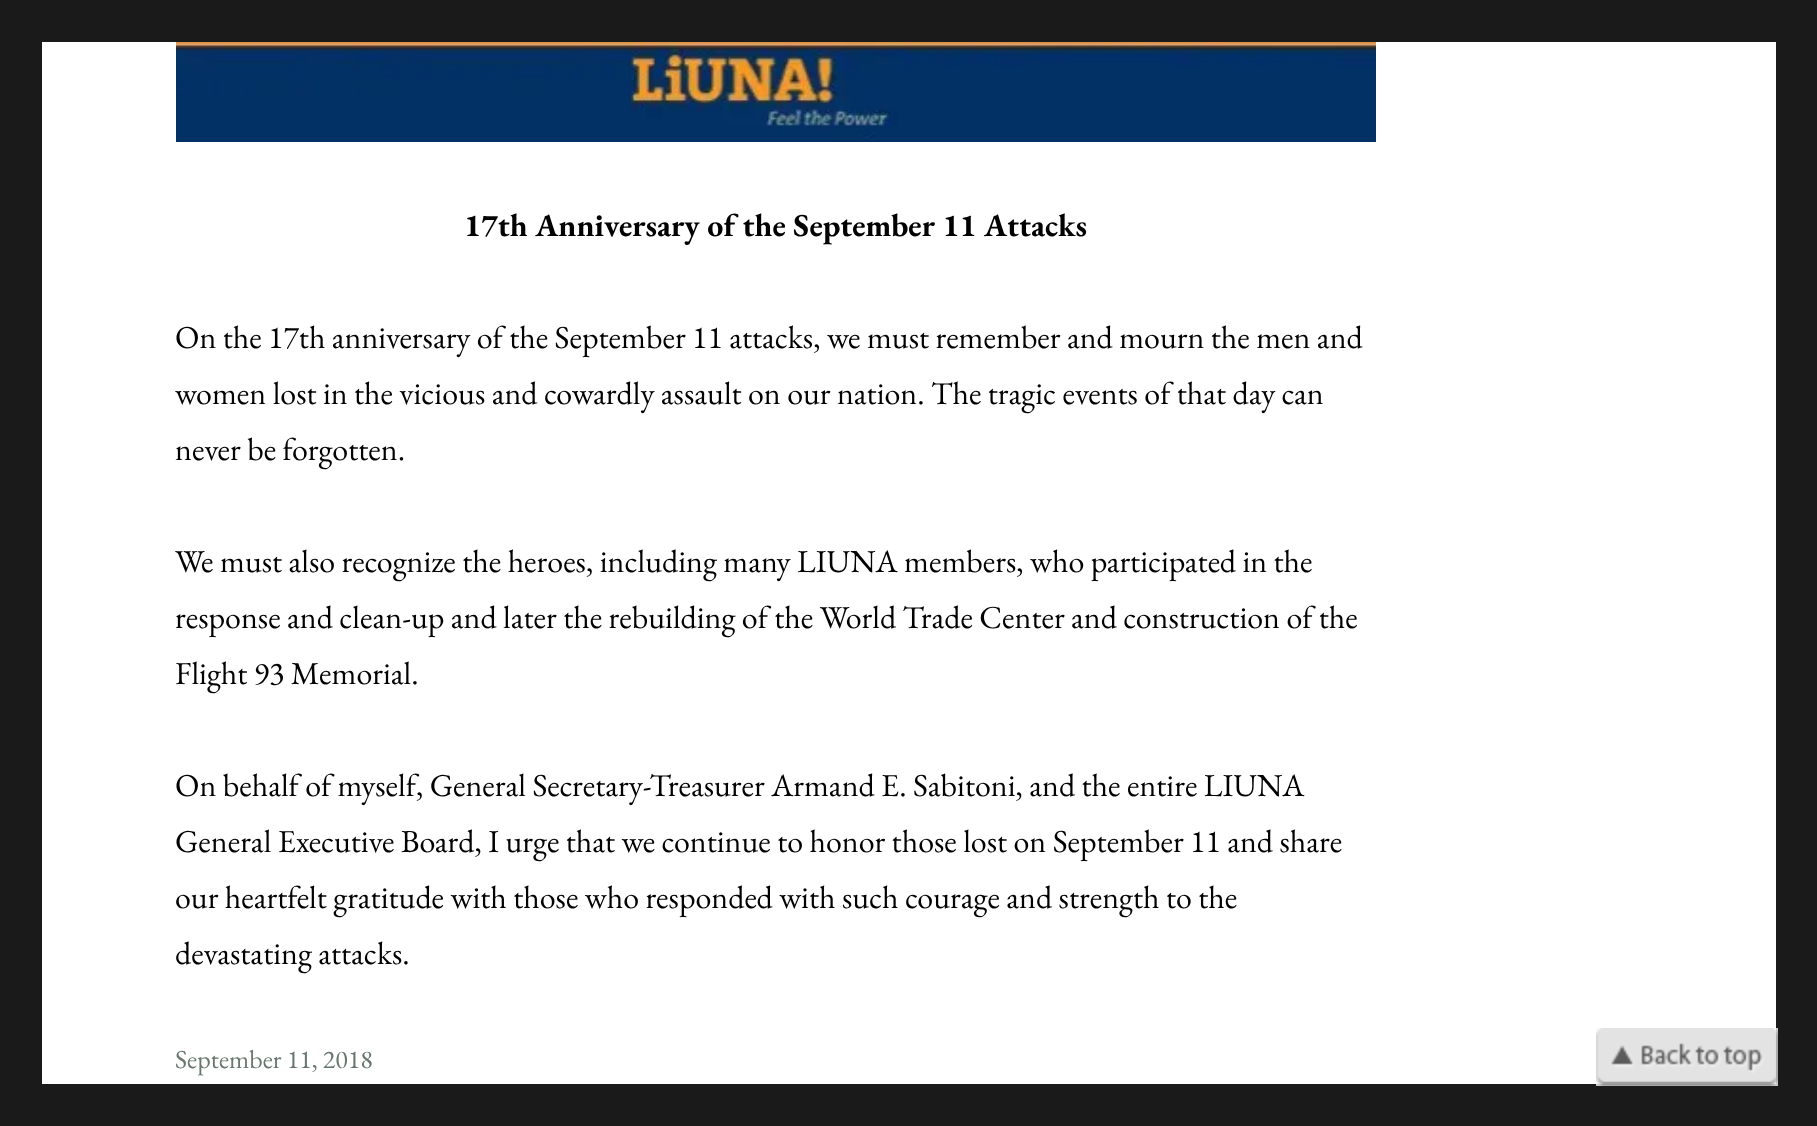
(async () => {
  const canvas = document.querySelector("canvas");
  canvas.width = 1817;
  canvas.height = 1126;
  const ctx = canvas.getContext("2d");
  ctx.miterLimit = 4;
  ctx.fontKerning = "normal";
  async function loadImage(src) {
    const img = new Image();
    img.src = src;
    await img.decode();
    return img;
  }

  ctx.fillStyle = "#1a1a1a";
  ctx.fillRect(0, 0, 1817, 1126);
  ctx.fillStyle = "#ffffff";
  ctx.fillRect(42, 42, 1734, 1042);
  ctx.drawImage(await loadImage("img/1.png"), 176, 42, 1200, 100);
  ctx.drawImage(await loadImage("img/2.png"), 1596, 1028, 182, 58);
  ctx.font = "bold 32px EB Garamond";
  ctx.fillStyle = "#000000";
  ctx.fillText("17th Anniversary of the September 11 Attacks", 464, 236);
  ctx.font = "32px EB Garamond";
  for (const [text, x, y] of [
    ["On the 17th anniversary of the September 11 attacks, we must remember and mourn the men and", 175, 348],
    ["women lost in the vicious and cowardly assault on our nation. The tragic events of that day can", 175, 404],
    ["never be forgotten.", 175, 460],
    ["We must also recognize the heroes, including many LIUNA members, who participated in the", 175, 572],
    ["response and clean-up and later the rebuilding of the World Trade Center and construction of the", 175, 628],
    ["Flight 93 Memorial.", 175, 684],
    ["On behalf of myself, General Secretary-Treasurer Armand E. Sabitoni, and the entire LIUNA", 175, 796],
    ["General Executive Board, I urge that we continue to honor those lost on September 11 and share", 175, 852],
    ["our heartfelt gratitude with those who responded with such courage and strength to the", 175, 908],
    ["devastating attacks.", 175, 964],
  ]) {
    ctx.fillText(text, x, y);
  }
  ctx.font = "26px EB Garamond";
  ctx.fillStyle = "#68786f";
  ctx.fillText("September 11, 2018", 175, 1068);
})();
